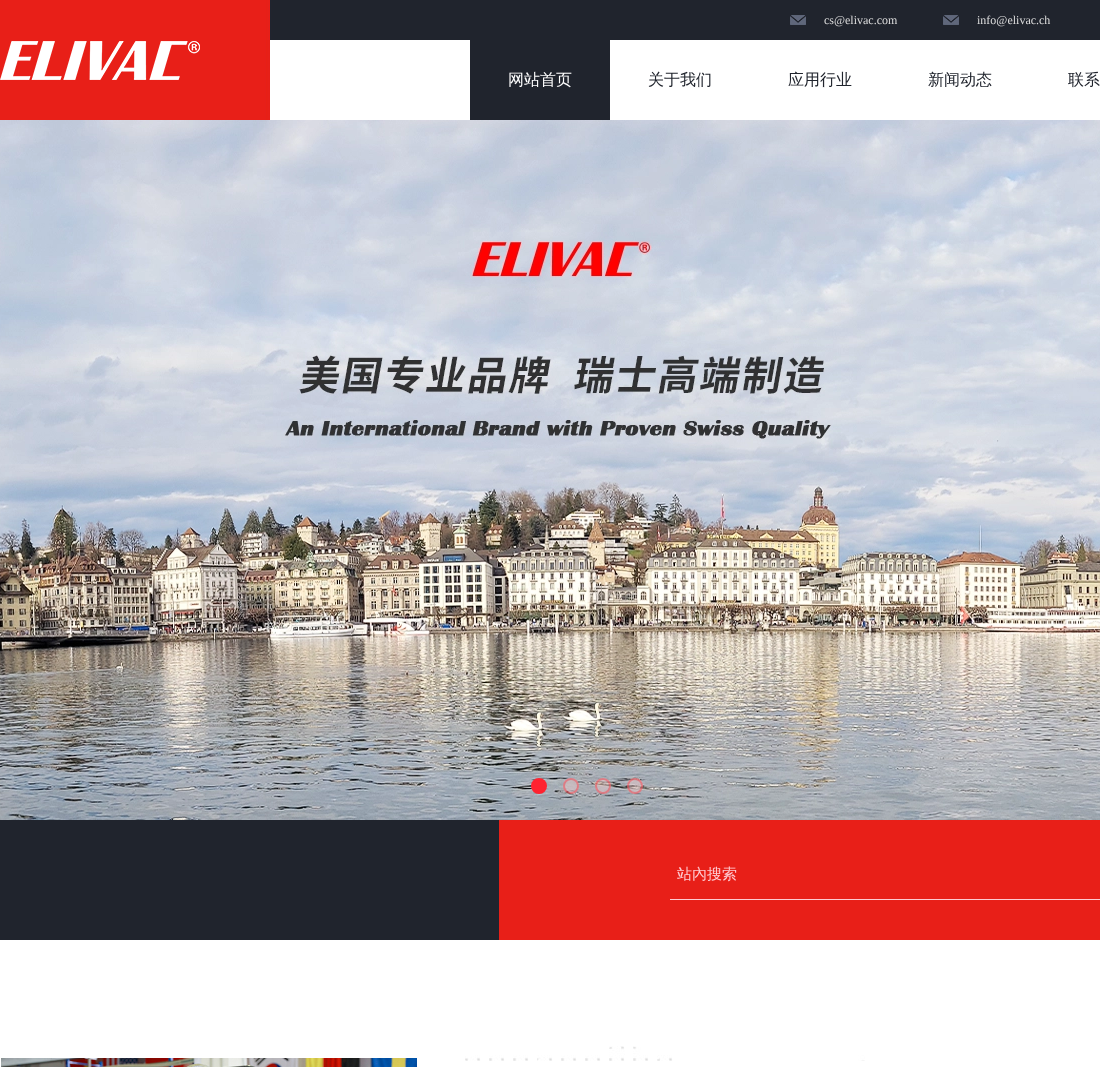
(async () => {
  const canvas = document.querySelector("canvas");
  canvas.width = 1100;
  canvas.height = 1067;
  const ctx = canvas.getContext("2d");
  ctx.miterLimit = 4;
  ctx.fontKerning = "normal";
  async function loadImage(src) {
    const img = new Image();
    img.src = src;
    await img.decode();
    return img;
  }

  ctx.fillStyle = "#ffffff";
  ctx.fillRect(0, 0, 1100, 1067);
  ctx.drawImage(await loadImage("img/1.png"), 0, 0, 1100, 120);
  ctx.drawImage(await loadImage("img/2.png"), 790, 15, 16, 10);
  ctx.drawImage(await loadImage("img/2.png"), 943, 15, 16, 10);
  ctx.drawImage(await loadImage("img/3.png"), 0, 41, 200, 39);
  ctx.fillStyle = "#20242d";
  ctx.fillRect(470, 40, 140, 80);
  ctx.drawImage(await loadImage("img/4.png"), 0, 120, 1100, 700);
  ctx.fillStyle = "#ff2330";
  ctx.beginPath();
  ctx.arc(539, 786, 7, 0, Math.PI * 2);
  ctx.fill();
  ctx.strokeStyle = "#ff2330";
  ctx.lineWidth = 2;
  ctx.stroke();
  ctx.fillStyle = "rgba(244, 204, 204, 0.4)";
  ctx.beginPath();
  ctx.arc(571, 786, 8, 0, Math.PI * 2);
  ctx.fill();
  ctx.beginPath();
  ctx.arc(571, 786, 7, 0, Math.PI * 2);
  ctx.strokeStyle = "rgba(255, 35, 48, 0.4)";
  ctx.stroke();
  ctx.beginPath();
  ctx.arc(603, 786, 8, 0, Math.PI * 2);
  ctx.fill();
  ctx.beginPath();
  ctx.arc(603, 786, 7, 0, Math.PI * 2);
  ctx.stroke();
  ctx.beginPath();
  ctx.arc(635, 786, 8, 0, Math.PI * 2);
  ctx.fill();
  ctx.beginPath();
  ctx.arc(635, 786, 7, 0, Math.PI * 2);
  ctx.stroke();
  for (const [x, y, w, h, color] of [
    [0, 820, 499, 120, "#20242d"],
    [499, 820, 601, 120, "#e81f18"],
    [670, 899, 430, 1, "#fecbd2"],
  ]) {
    ctx.fillStyle = color;
    ctx.fillRect(x, y, w, h);
  }
  ctx.drawImage(await loadImage("img/5.png"), 465, 1046, 400, 15);
  ctx.drawImage(await loadImage("img/6.png"), 1, 1058, 416, 9);
  ctx.font = "12px Liberation Serif";
  ctx.fillStyle = "#dddddd";
  ctx.fillText("cs@elivac.com", 824, 24);
  ctx.fillText("info@elivac.ch", 977, 24);
  ctx.font = "500 16px WenQuanYi Zen Hei";
  ctx.fillStyle = "#ffffff";
  ctx.fillText("网站首页", 508, 85);
  ctx.fillStyle = "#20242d";
  for (const [text, x, y] of [
    ["关于我们", 648, 85],
    ["应用行业", 788, 85],
    ["新闻动态", 928, 85],
    ["联系", 1068, 85],
  ]) {
    ctx.fillText(text, x, y);
  }
  ctx.font = "500 15px WenQuanYi Zen Hei";
  ctx.fillStyle = "#ffcbd2";
  ctx.fillText("站內搜索", 677, 879);
})();
